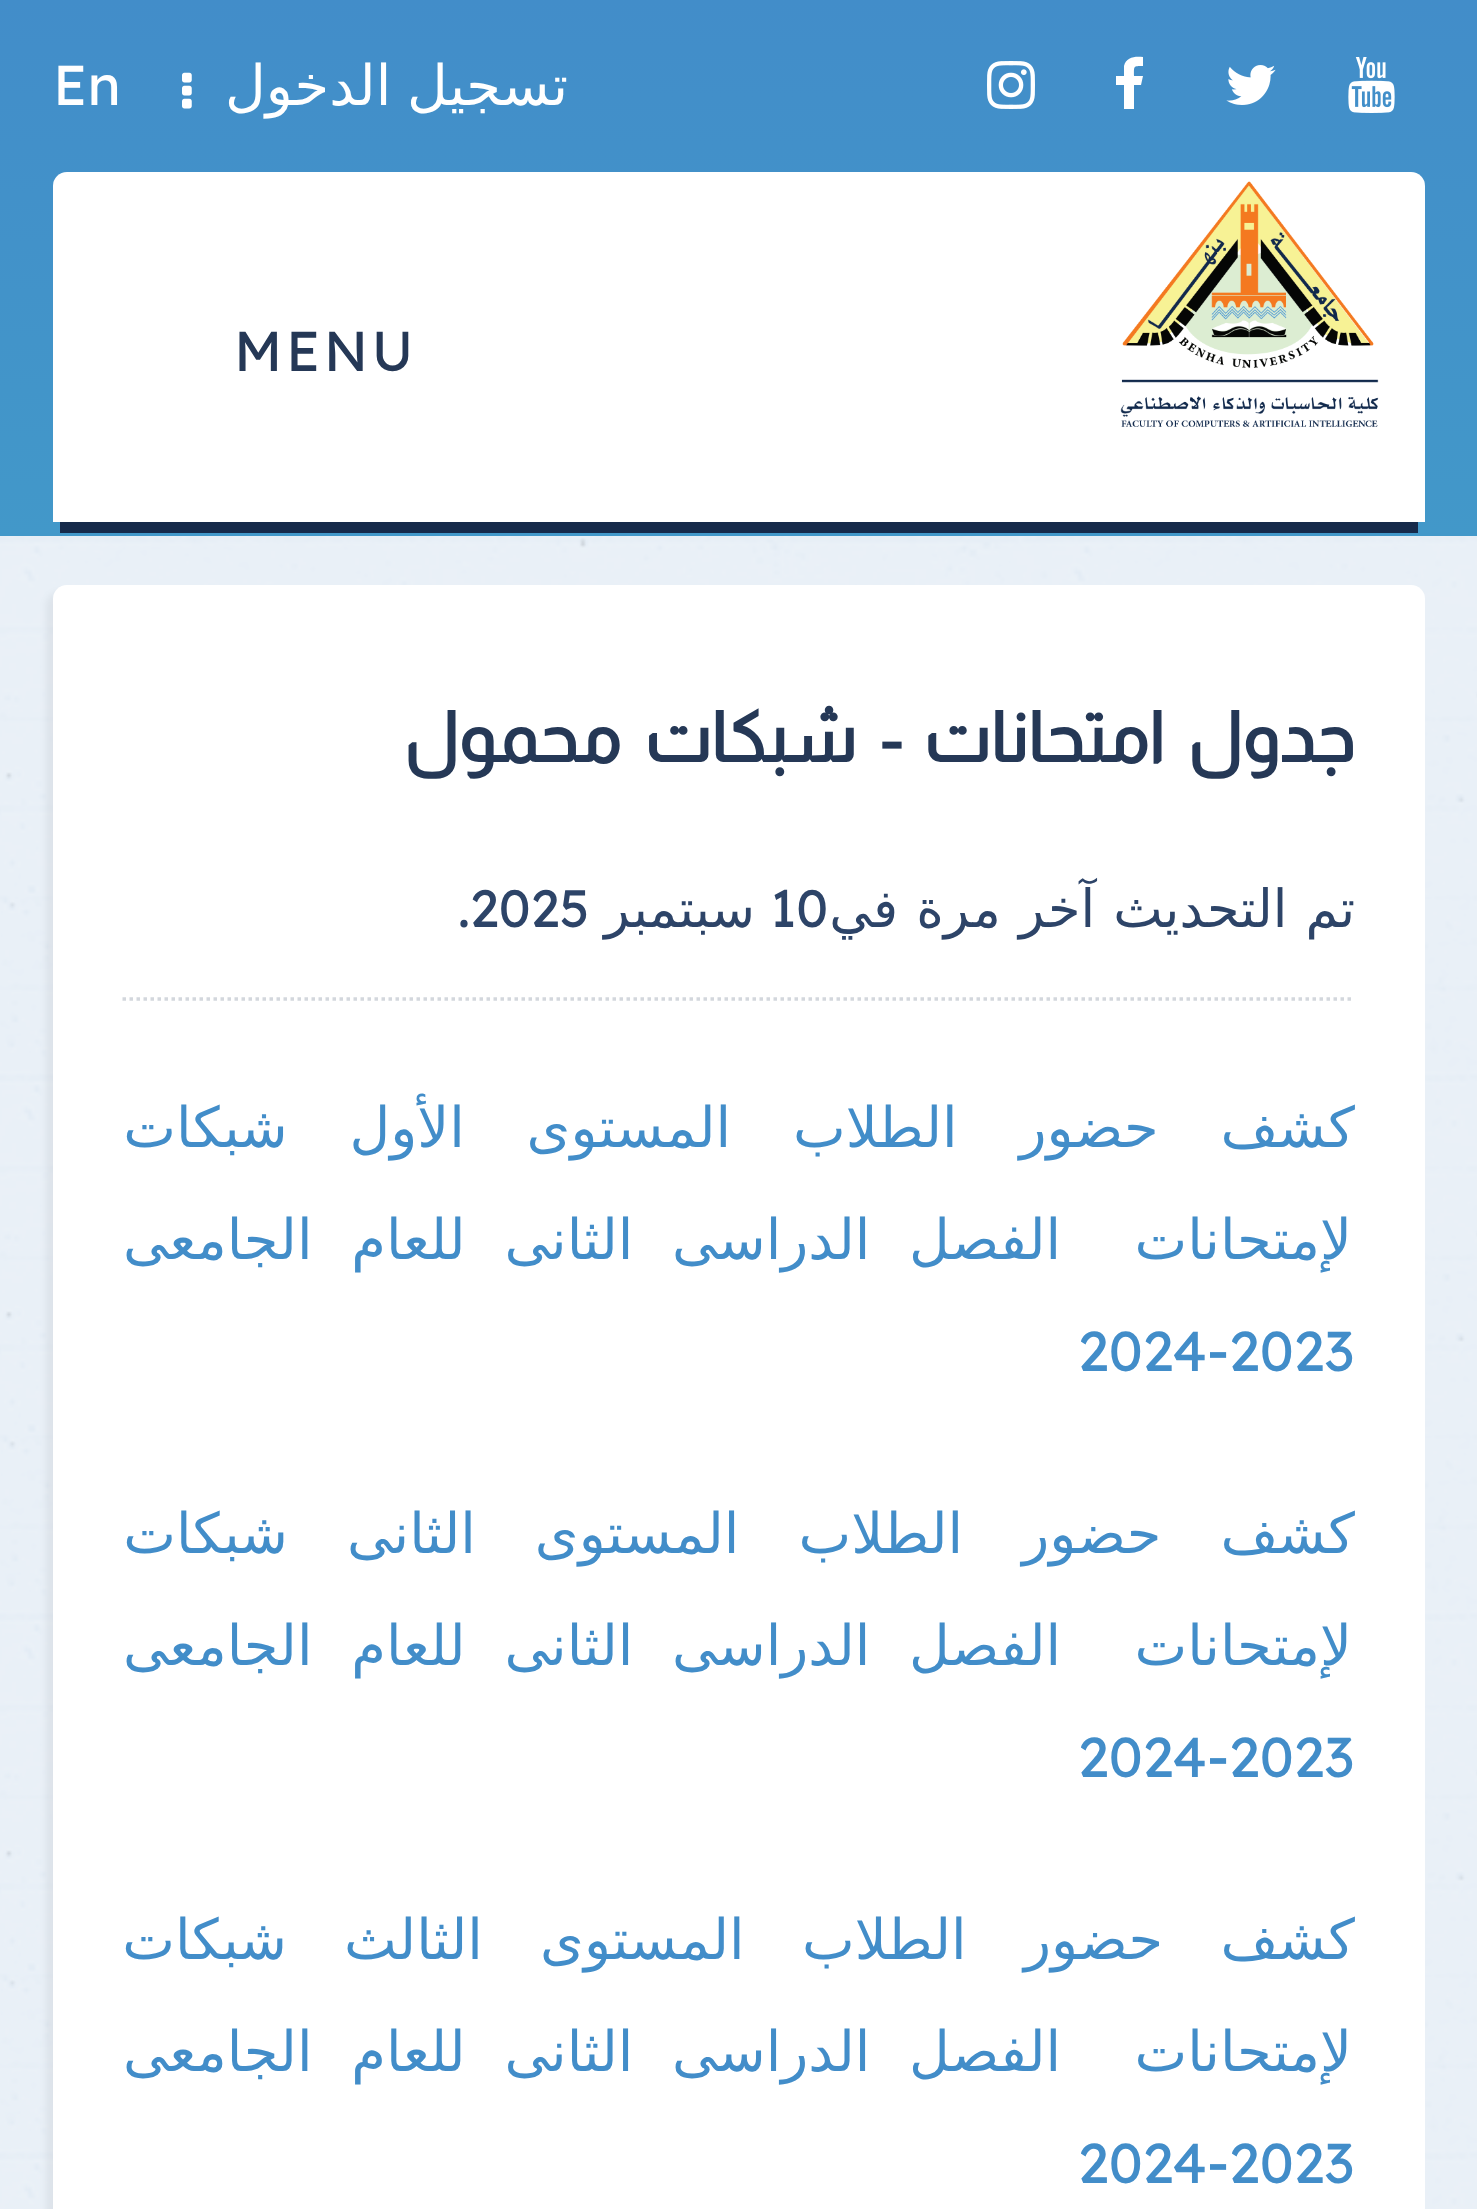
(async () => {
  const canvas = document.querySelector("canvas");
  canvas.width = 1477;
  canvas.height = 2209;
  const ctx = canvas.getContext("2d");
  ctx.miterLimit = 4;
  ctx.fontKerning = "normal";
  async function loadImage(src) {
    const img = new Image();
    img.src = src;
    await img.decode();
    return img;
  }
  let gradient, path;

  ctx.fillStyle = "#e3ecf5";
  ctx.fillRect(0, 0, 1477, 2209);
  ctx.drawImage(await loadImage("img/1.png"), 0, 536, 1477, 1673);
  gradient = ctx.createLinearGradient(739, 536, 739, 0);
  gradient.addColorStop(0, "#4298c9");
  gradient.addColorStop(1, "#428dc9");
  ctx.fillStyle = gradient;
  ctx.fillRect(0, 0, 1477, 536);
  ctx.drawImage(await loadImage("img/2.png"), 1348, 57, 47, 56);
  ctx.drawImage(await loadImage("img/3.png"), 1226, 65, 50, 40);
  ctx.fillStyle = "#ffffff";
  path = new Path2D("M1143 57V66C1133 66 1134 66 1134 76H1143L1141 85H1134V109H1124V85H1116V76H1124V66C1126 57 1135 56 1143 57Z");
  ctx.fill(path);
  ctx.drawImage(await loadImage("img/4.png"), 987, 61, 48, 48);
  ctx.drawImage(await loadImage("img/5.png"), 182, 72, 10, 37);
  ctx.fillStyle = "#162a4a";
  ctx.fillRect(60, 522, 1358, 11);
  ctx.fillStyle = "#ffffff";
  ctx.beginPath();
  ctx.roundRect(53, 172, 1372, 350, [14, 14, 0, 0]);
  ctx.fill();
  ctx.drawImage(await loadImage("img/6.png"), 1120, 181, 259, 246);
  ctx.fillStyle = "rgba(0, 0, 0, 0.05)";
  ctx.filter = "blur(3.5px)";
  ctx.beginPath();
  ctx.roundRect(46, 592, 1372, 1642, 14);
  ctx.fill();
  ctx.filter = "none";
  ctx.fillStyle = "#ffffff";
  ctx.beginPath();
  ctx.roundRect(53, 585, 1372, 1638, 14);
  ctx.fill();
  path = new Path2D("M122.5 999H1354.5");
  ctx.strokeStyle = "#d3d7dd";
  ctx.lineWidth = 3.5;
  ctx.setLineDash([3.5, 3.5]);
  ctx.stroke(path);
  ctx.wordSpacing = "-2px";
  ctx.direction = "rtl";
  ctx.font = "56px DejaVu Sans";
  ctx.fillText("تسجيل الدخول", 568, 105);
  ctx.wordSpacing = "0px";
  ctx.direction = "ltr";
  ctx.font = "56px Lexend Deca";
  ctx.fillText("En", 53, 105);
  ctx.letterSpacing = "3.5px";
  ctx.fillStyle = "#253856";
  ctx.fillText("MENU", 234, 371);
  ctx.letterSpacing = "-1.75px";
  ctx.wordSpacing = "12px";
  ctx.direction = "rtl";
  ctx.font = "bold 70px Almarai";
  ctx.fillText("جدول امتحانات - شبكات محمول", 1355, 762);
  ctx.letterSpacing = "0px";
  ctx.wordSpacing = "1.5px";
  ctx.font = "52.5px DejaVu Sans";
  ctx.fillStyle = "#2d4468";
  ctx.fillText("تم التحديث آخر مرة في", 1355, 927);
  ctx.wordSpacing = "0px";
  ctx.direction = "ltr";
  ctx.font = "52.5px Lexend Deca";
  ctx.fillText("10", 770, 927);
  ctx.direction = "rtl";
  ctx.font = "52.5px DejaVu Sans";
  ctx.fillText("سبتمبر", 755, 927);
  ctx.direction = "ltr";
  ctx.font = "52.5px Lexend Deca";
  ctx.fillText("2025", 470, 927);
  ctx.fillText(".", 458, 927);
  ctx.wordSpacing = "44px";
  ctx.direction = "rtl";
  ctx.font = "56px DejaVu Sans";
  ctx.fillStyle = "#428dc9";
  ctx.fillText("كشف حضور الطلاب المستوى الأول شبكات", 1355, 1147);
  ctx.wordSpacing = "0px";
  ctx.fillText("لإمتحانات", 1352, 1259);
  ctx.wordSpacing = "21px";
  ctx.fillText("الفصل الدراسى الثانى للعام الجامعى", 1061, 1259);
  ctx.wordSpacing = "0px";
  ctx.direction = "ltr";
  ctx.font = "56px Lexend Deca";
  ctx.fillText("2024-2023", 1078, 1371);
  ctx.wordSpacing = "41.25px";
  ctx.direction = "rtl";
  ctx.font = "56px DejaVu Sans";
  ctx.fillText("كشف حضور الطلاب المستوى الثانى شبكات", 1355, 1553);
  ctx.wordSpacing = "0px";
  ctx.fillText("لإمتحانات", 1352, 1665);
  ctx.wordSpacing = "21px";
  ctx.fillText("الفصل الدراسى الثانى للعام الجامعى", 1061, 1665);
  ctx.wordSpacing = "0px";
  ctx.direction = "ltr";
  ctx.font = "56px Lexend Deca";
  ctx.fillText("2024-2023", 1078, 1777);
  ctx.wordSpacing = "39.5px";
  ctx.direction = "rtl";
  ctx.font = "56px DejaVu Sans";
  ctx.fillText("كشف حضور الطلاب المستوى الثالث شبكات", 1355, 1959);
  ctx.wordSpacing = "0px";
  ctx.fillText("لإمتحانات", 1352, 2071);
  ctx.wordSpacing = "21px";
  ctx.fillText("الفصل الدراسى الثانى للعام الجامعى", 1061, 2071);
  ctx.wordSpacing = "0px";
  ctx.direction = "ltr";
  ctx.font = "56px Lexend Deca";
  ctx.fillText("2024-2023", 1078, 2183);
})();
